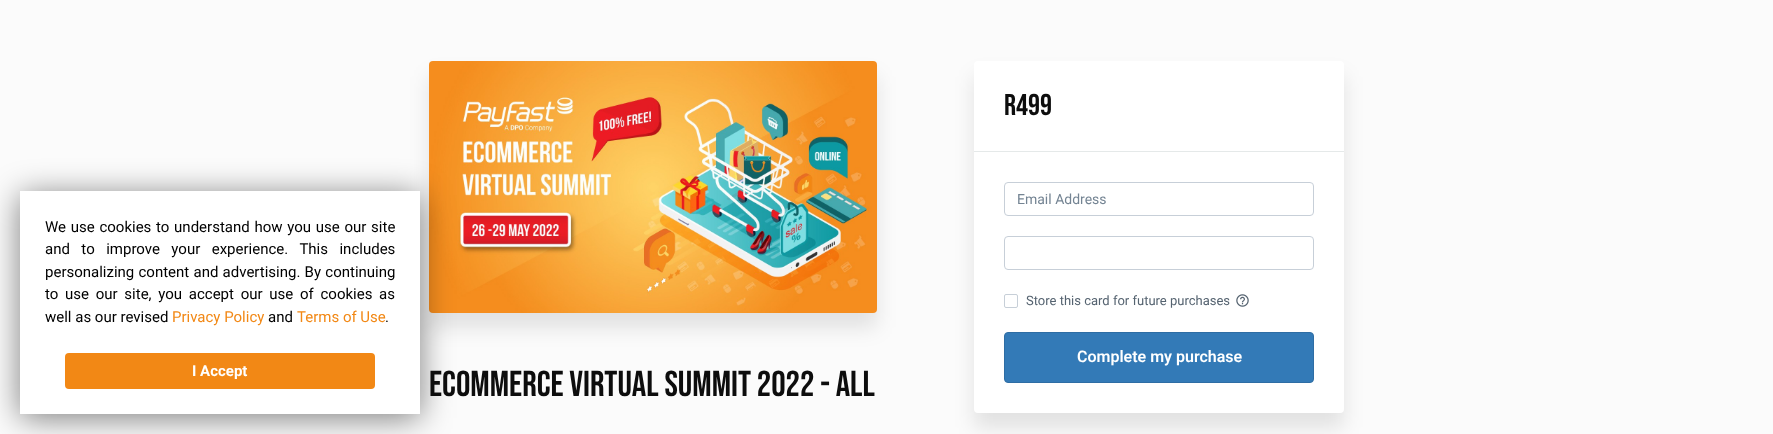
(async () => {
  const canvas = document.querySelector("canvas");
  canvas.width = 1773;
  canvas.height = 434;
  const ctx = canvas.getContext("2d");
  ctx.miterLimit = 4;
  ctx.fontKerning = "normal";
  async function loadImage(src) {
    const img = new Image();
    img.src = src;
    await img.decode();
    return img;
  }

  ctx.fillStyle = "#fbfbfb";
  ctx.fillRect(0, 0, 1773, 434);
  ctx.fillStyle = "rgba(0, 0, 0, 0.1)";
  ctx.filter = "blur(10px)";
  ctx.beginPath();
  ctx.roundRect(429, 76, 448, 252, 4);
  ctx.fill();
  ctx.filter = "none";
  ctx.drawImage(await loadImage("img/2.png"), 429, 61, 448, 252);
  ctx.fillStyle = "rgba(0, 0, 0, 0.5)";
  ctx.filter = "blur(16px)";
  ctx.beginPath();
  ctx.rect(20, 195, 400, 223);
  ctx.fill();
  ctx.filter = "none";
  ctx.fillStyle = "#ffffff";
  ctx.fillRect(20, 191, 400, 223);
  ctx.fillStyle = "#f28815";
  ctx.beginPath();
  ctx.roundRect(65, 353, 310, 36, 4);
  ctx.fill();
  ctx.fillStyle = "rgba(0, 0, 0, 0.1)";
  ctx.filter = "blur(10px)";
  ctx.beginPath();
  ctx.roundRect(974, 76, 370, 352, 4);
  ctx.fill();
  ctx.filter = "none";
  ctx.fillStyle = "#ffffff";
  ctx.beginPath();
  ctx.roundRect(974, 61, 370, 352, 4);
  ctx.fill();
  ctx.fillStyle = "#e5e9e9";
  ctx.fillRect(974, 151, 370, 1);
  ctx.beginPath();
  ctx.roundRect(1004.5, 182.5, 309, 33, 3.5);
  ctx.strokeStyle = "#c7cfd8";
  ctx.stroke();
  ctx.beginPath();
  ctx.roundRect(1004.5, 236.5, 309, 33, 3.5);
  ctx.stroke();
  ctx.beginPath();
  ctx.roundRect(1004.5, 294.5, 13, 13, 1.5);
  ctx.stroke();
  ctx.drawImage(await loadImage("img/1.png"), 1236, 294, 13, 13);
  ctx.fillStyle = "#337ab7";
  ctx.beginPath();
  ctx.roundRect(1004.5, 332.5, 309, 50, 3.5);
  ctx.fill();
  ctx.strokeStyle = "#2e6da4";
  ctx.stroke();
  ctx.wordSpacing = "1px";
  ctx.font = "15px Roboto";
  ctx.fillStyle = "#000000";
  ctx.fillText("We use cookies to understand how you use our site", 45, 232);
  ctx.wordSpacing = "7.75px";
  ctx.fillText("and to improve your experience. This includes", 45, 254);
  ctx.wordSpacing = "0.5px";
  ctx.fillText("personalizing content and advertising. By continuing", 45, 277);
  ctx.wordSpacing = "3px";
  ctx.fillText("to use our site, you accept our use of cookies as", 45, 299);
  ctx.wordSpacing = "0px";
  ctx.fillText("well as our revised", 45, 322);
  ctx.fillStyle = "#f28815";
  ctx.fillText("Privacy Policy", 172, 322);
  ctx.fillStyle = "#000000";
  ctx.fillText("and", 268, 322);
  ctx.fillStyle = "#f28815";
  ctx.fillText("Terms of Use", 297, 322);
  ctx.fillStyle = "#000000";
  ctx.fillText(".", 385, 322);
  ctx.font = "bold 15px Roboto";
  ctx.fillStyle = "#ffffff";
  ctx.fillText("I Accept", 192, 376);
  ctx.font = "30px Bebas Neue";
  ctx.fillStyle = "#0d0d0d";
  ctx.fillText("R499", 1004, 115);
  ctx.font = "14px Roboto";
  ctx.fillStyle = "#748493";
  ctx.fillText("Email Address", 1017, 204);
  ctx.font = "13px Roboto";
  ctx.fillStyle = "#556370";
  ctx.fillText("Store this card for future purchases", 1026, 305);
  ctx.font = "600 16px Roboto";
  ctx.fillStyle = "#ffffff";
  ctx.fillText("Complete my purchase", 1077, 362);
  ctx.font = "36px Bebas Neue";
  ctx.fillStyle = "#0d0d0d";
  ctx.fillText("eCommerce Virtual Summit 2022 - All", 429, 396);
})();
